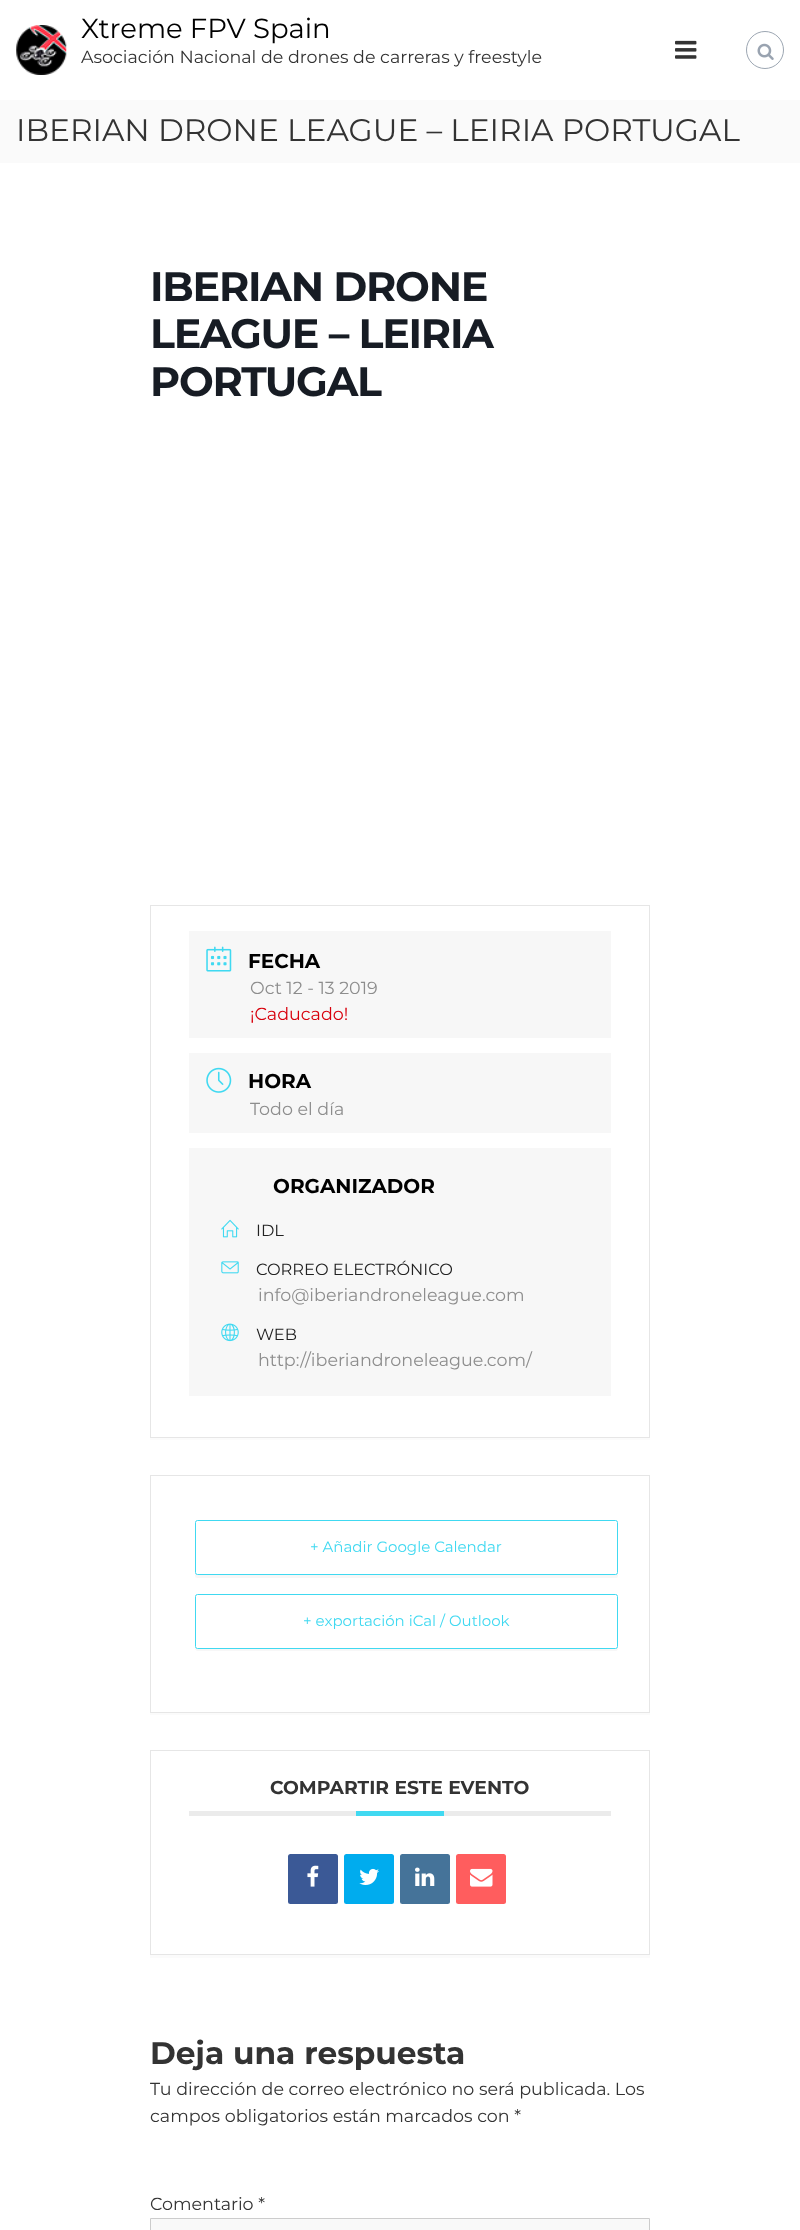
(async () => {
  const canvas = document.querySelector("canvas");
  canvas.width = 800;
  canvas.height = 2230;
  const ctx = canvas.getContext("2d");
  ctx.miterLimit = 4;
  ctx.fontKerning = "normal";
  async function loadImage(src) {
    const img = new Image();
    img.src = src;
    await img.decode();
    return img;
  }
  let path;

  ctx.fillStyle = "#ffffff";
  ctx.fillRect(0, 0, 800, 2230);
  ctx.drawImage(await loadImage("img/1.png"), 16, 25, 51, 50);
  ctx.drawImage(await loadImage("img/2.png"), 675, 40, 22, 19);
  ctx.beginPath();
  ctx.arc(765, 50, 18.5, 0, Math.PI * 2);
  ctx.strokeStyle = "#9ca6b2";
  ctx.stroke();
  ctx.drawImage(await loadImage("img/3.png"), 757, 43, 17, 17);
  ctx.fillStyle = "#fafafa";
  ctx.fillRect(0, 100, 800, 63);
  ctx.fillStyle = "#fbfbfb";
  ctx.fillRect(150, 1438, 500, 2);
  ctx.strokeStyle = "#e6e6e6";
  ctx.strokeRect(150.5, 905.5, 499, 532);
  ctx.fillStyle = "#f7f7f7";
  ctx.fillRect(189, 931, 422, 107);
  ctx.drawImage(await loadImage("img/4.png"), 206, 946, 26, 26);
  ctx.fillRect(189, 1053, 422, 80);
  ctx.drawImage(await loadImage("img/5.png"), 206, 1067, 26, 26);
  ctx.fillRect(189, 1148, 422, 248);
  ctx.drawImage(await loadImage("img/6.png"), 221, 1219, 18, 19);
  ctx.drawImage(await loadImage("img/7.png"), 221, 1261, 18, 13);
  ctx.drawImage(await loadImage("img/8.png"), 221, 1323, 18, 19);
  ctx.fillStyle = "#fbfbfb";
  ctx.fillRect(150, 1713, 500, 2);
  ctx.strokeRect(150.5, 1475.5, 499, 237);
  ctx.fillStyle = "#f7f7f7";
  path = new Path2D("M195 1572V1576C195 1577 196 1578 198 1578H616C617 1578 618 1577 618 1576V1526V1524V1572C618 1574 616 1575 615 1575H198C196 1575 195 1574 195 1572Z");
  ctx.fill(path);
  ctx.fillStyle = "#ffffff";
  ctx.beginPath();
  ctx.roundRect(195.5, 1520.5, 422, 54, 2);
  ctx.fill();
  ctx.strokeStyle = "#40d9f1";
  ctx.stroke();
  ctx.fillStyle = "#f7f7f7";
  path = new Path2D("M195 1646V1648C195 1650 196 1651 198 1651H616C617 1651 618 1650 618 1648V1598V1597V1646C618 1648 616 1649 615 1649H198C196 1649 195 1648 195 1646Z");
  ctx.fill(path);
  ctx.fillStyle = "#ffffff";
  ctx.beginPath();
  ctx.roundRect(195.5, 1594.5, 422, 54, 2);
  ctx.fill();
  ctx.stroke();
  ctx.fillStyle = "#fbfbfb";
  ctx.fillRect(150, 1955, 500, 3);
  ctx.strokeStyle = "#e6e6e6";
  ctx.strokeRect(150.5, 1750.5, 499, 204);
  ctx.fillStyle = "#ebebeb";
  ctx.fillRect(189, 1811, 422, 5);
  ctx.fillStyle = "#40d9f1";
  ctx.fillRect(356, 1811, 88, 5);
  ctx.fillStyle = "#3b5996";
  ctx.beginPath();
  ctx.roundRect(288, 1854, 50, 50, 2.5);
  ctx.fill();
  ctx.drawImage(await loadImage("img/9.png"), 307, 1865, 12, 22);
  ctx.fillStyle = "#00acee";
  ctx.beginPath();
  ctx.roundRect(344, 1854, 50, 50, 2.5);
  ctx.fill();
  ctx.drawImage(await loadImage("img/10.png"), 359, 1868, 20, 17);
  ctx.fillStyle = "#457399";
  ctx.beginPath();
  ctx.roundRect(400, 1854, 50, 50, 2.5);
  ctx.fill();
  ctx.drawImage(await loadImage("img/11.png"), 415, 1867, 20, 19);
  ctx.fillStyle = "#ff5d5e";
  ctx.beginPath();
  ctx.roundRect(456, 1854, 50, 50, 2.5);
  ctx.fill();
  ctx.drawImage(await loadImage("img/12.png"), 470, 1868, 23, 19);
  ctx.fillStyle = "#f9f9f9";
  ctx.beginPath();
  ctx.rect(150.5, 2218.5, 499, 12);
  ctx.fill();
  ctx.strokeStyle = "#cccccc";
  ctx.stroke();
  ctx.font = "27.5px Montserrat";
  ctx.fillStyle = "#000000";
  ctx.fillText("Xtreme FPV Spain", 81, 38);
  ctx.font = "17.5px Montserrat";
  ctx.fillStyle = "#333333";
  ctx.fillText("Asociación Nacional de drones de carreras y freestyle", 81, 63);
  ctx.font = "31.25px Montserrat";
  ctx.fillText("IBERIAN DRONE LEAGUE – LEIRIA PORTUGAL", 16, 141);
  ctx.letterSpacing = "-1.25px";
  ctx.font = "bold 41.25px Montserrat";
  ctx.fillStyle = "#171c24";
  for (const [text, x, y] of [
    ["IBERIAN DRONE", 150, 301],
    ["LEAGUE – LEIRIA", 150, 348],
    ["PORTUGAL", 150, 396],
  ]) {
    ctx.fillText(text, x, y);
  }
  ctx.letterSpacing = "0px";
  ctx.font = "bold 20px Montserrat";
  ctx.fillStyle = "#000000";
  ctx.fillText("FECHA", 248, 968);
  ctx.font = "17.5px Montserrat";
  ctx.fillStyle = "#8d8d8d";
  ctx.fillText("Oct 12 - 13 2019", 250, 994);
  ctx.fillStyle = "#d8000c";
  ctx.fillText("¡Caducado!", 250, 1020);
  ctx.font = "bold 20px Montserrat";
  ctx.fillStyle = "#000000";
  ctx.fillText("HORA", 248, 1088);
  ctx.font = "17.5px Montserrat";
  ctx.fillStyle = "#8d8d8d";
  ctx.fillText("Todo el día", 250, 1115);
  ctx.font = "bold 20px Montserrat";
  ctx.fillStyle = "#000000";
  ctx.fillText("ORGANIZADOR", 273, 1193);
  ctx.font = "16.25px Montserrat";
  ctx.fillStyle = "#222222";
  ctx.fillText("IDL", 256, 1236);
  ctx.fillText("CORREO ELECTRÓNICO", 256, 1275);
  ctx.font = "17.5px Montserrat";
  ctx.fillStyle = "#8d8d8d";
  ctx.fillText("info@iberiandroneleague.com", 258, 1301);
  ctx.font = "16.25px Montserrat";
  ctx.fillStyle = "#222222";
  ctx.fillText("WEB", 256, 1340);
  ctx.font = "17.5px Montserrat";
  ctx.fillStyle = "#8d8d8d";
  ctx.fillText("http://iberiandroneleague.com/", 258, 1366);
  ctx.font = "15px Montserrat";
  ctx.fillStyle = "#40d9f1";
  ctx.fillText("+ Añadir Google Calendar", 310, 1552);
  ctx.fillText("+ exportación iCal / Outlook", 303, 1626);
  ctx.font = "bold 18.75px Montserrat";
  ctx.fillStyle = "#333333";
  ctx.fillText("COMPARTIR ESTE EVENTO", 270, 1794);
  ctx.font = "bold 31.25px Montserrat";
  ctx.fillText("Deja una respuesta", 150, 2064);
  ctx.font = "17.5px Montserrat";
  for (const [text, x, y] of [
    ["Tu dirección de correo electrónico no será publicada. Los", 150, 2095],
    ["campos obligatorios están marcados con *", 150, 2122],
    ["Comentario *", 150, 2210],
  ]) {
    ctx.fillText(text, x, y);
  }
})();
